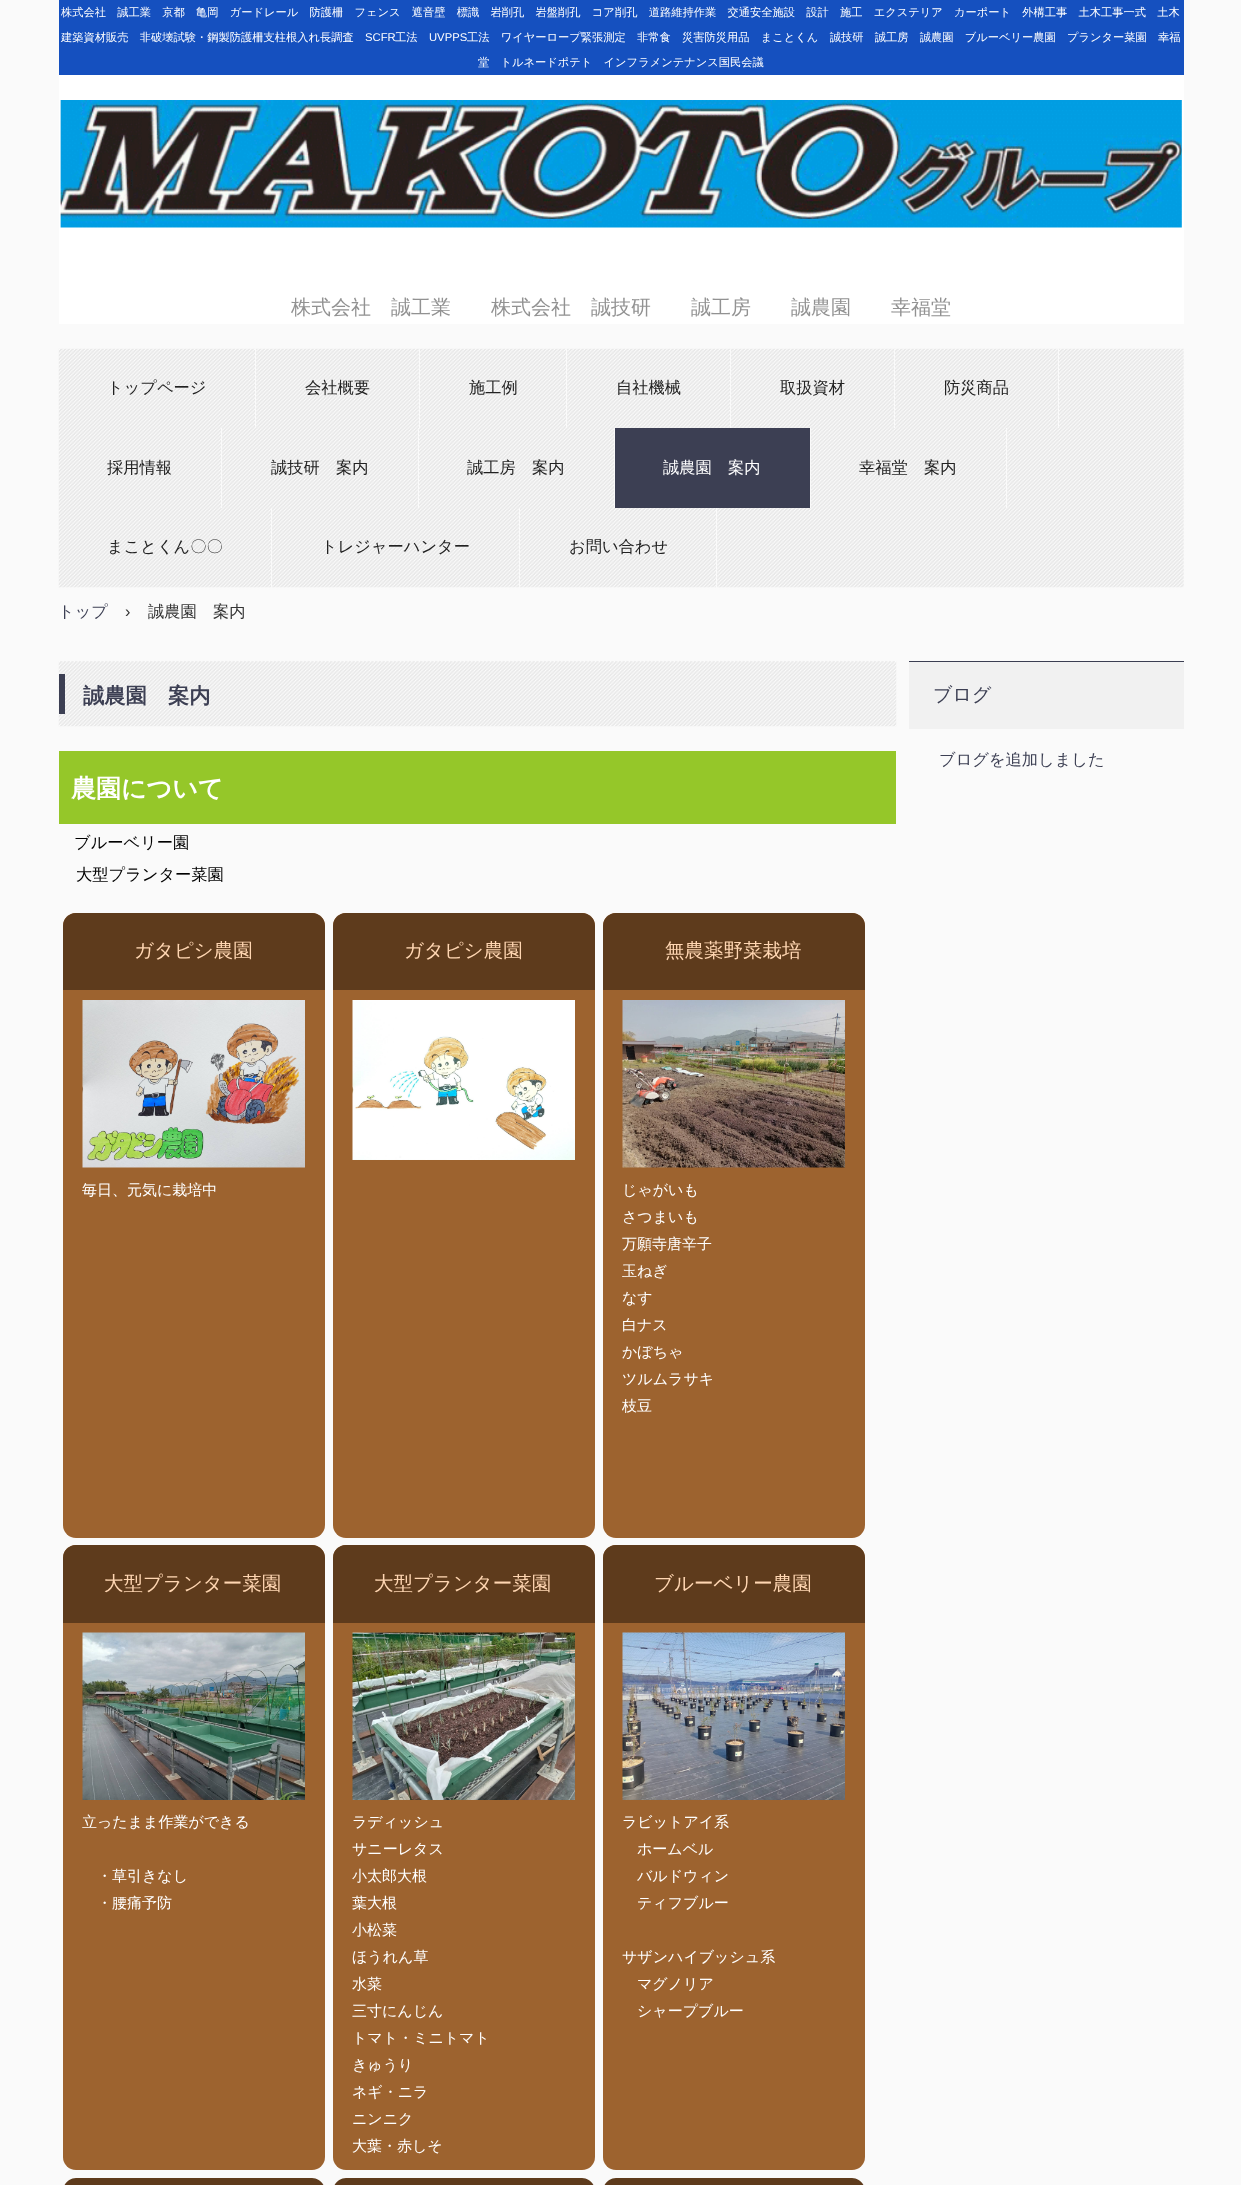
(async () => {
  const canvas = document.querySelector("canvas");
  canvas.width = 1241;
  canvas.height = 2185;
  const ctx = canvas.getContext("2d");
  ctx.miterLimit = 4;
  ctx.fontKerning = "normal";
  async function loadImage(src) {
    const img = new Image();
    img.src = src;
    await img.decode();
    return img;
  }
  let path;

  ctx.fillStyle = "#fafafa";
  ctx.fillRect(0, 0, 1241, 2185);
  ctx.fillStyle = "#ffffff";
  ctx.fillRect(59, 75, 1125, 249);
  ctx.fillStyle = "#1550bf";
  ctx.fillRect(59, 0, 1125, 75);
  ctx.drawImage(await loadImage("img/1.png"), 60, 100, 1122, 128);
  ctx.fillStyle = "#ffffff";
  ctx.fillRect(59, 349, 1125, 239);
  ctx.drawImage(await loadImage("img/2.png"), 58, 348, 1126, 240);
  for (const [x, y, w, h, color] of [
    [255, 349, 1, 79, "#fafafa"],
    [419, 349, 1, 79, "#fafafa"],
    [566, 349, 1, 79, "#fafafa"],
    [730, 349, 1, 79, "#fafafa"],
    [894, 349, 1, 79, "#fafafa"],
    [1058, 349, 1, 79, "#fafafa"],
    [221, 428, 1, 80, "#fafafa"],
    [418, 428, 1, 80, "#fafafa"],
    [614, 428, 1, 80, "#fafafa"],
    [615, 428, 195, 80, "#3c3f53"],
    [810, 428, 1, 80, "#fafafa"],
    [1006, 428, 1, 80, "#fafafa"],
    [271, 508, 1, 80, "#fafafa"],
    [519, 508, 1, 80, "#fafafa"],
    [716, 508, 1, 80, "#fafafa"],
  ]) {
    ctx.fillStyle = color;
    ctx.fillRect(x, y, w, h);
  }
  ctx.drawImage(await loadImage("img/3.png"), 58, 661, 839, 66);
  ctx.fillStyle = "#3c3f53";
  ctx.fillRect(59, 674, 6, 40);
  ctx.fillStyle = "#95c729";
  ctx.fillRect(59, 751, 837, 73);
  ctx.fillStyle = "#9d632f";
  ctx.beginPath();
  ctx.roundRect(63, 913, 262, 625, 13);
  ctx.fill();
  ctx.fillStyle = "#5e3b1c";
  ctx.beginPath();
  ctx.roundRect(63, 913, 262, 77, [13, 13, 0, 0]);
  ctx.fill();
  ctx.drawImage(await loadImage("img/4.png"), 82, 1000, 223, 168);
  ctx.fillStyle = "#9d632f";
  ctx.beginPath();
  ctx.roundRect(333, 913, 262, 625, 13);
  ctx.fill();
  ctx.fillStyle = "#5e3b1c";
  ctx.beginPath();
  ctx.roundRect(333, 913, 262, 77, [13, 13, 0, 0]);
  ctx.fill();
  ctx.drawImage(await loadImage("img/5.png"), 352, 1000, 223, 160);
  ctx.fillStyle = "#9d632f";
  ctx.beginPath();
  ctx.roundRect(603, 913, 262, 625, 13);
  ctx.fill();
  ctx.fillStyle = "#5e3b1c";
  ctx.beginPath();
  ctx.roundRect(603, 913, 262, 77, [13, 13, 0, 0]);
  ctx.fill();
  ctx.drawImage(await loadImage("img/6.png"), 622, 1000, 223, 168);
  ctx.fillStyle = "#9d632f";
  ctx.beginPath();
  ctx.roundRect(63, 1545, 262, 625, 13);
  ctx.fill();
  ctx.fillStyle = "#5e3b1c";
  ctx.beginPath();
  ctx.roundRect(63, 1545, 262, 78, [13, 13, 0, 0]);
  ctx.fill();
  ctx.drawImage(await loadImage("img/7.png"), 82, 1632, 223, 168);
  ctx.fillStyle = "#9d632f";
  ctx.beginPath();
  ctx.roundRect(333, 1545, 262, 625, 13);
  ctx.fill();
  ctx.fillStyle = "#5e3b1c";
  ctx.beginPath();
  ctx.roundRect(333, 1545, 262, 78, [13, 13, 0, 0]);
  ctx.fill();
  ctx.drawImage(await loadImage("img/8.png"), 352, 1632, 223, 168);
  ctx.fillStyle = "#9d632f";
  ctx.beginPath();
  ctx.roundRect(603, 1545, 262, 625, 13);
  ctx.fill();
  ctx.fillStyle = "#5e3b1c";
  ctx.beginPath();
  ctx.roundRect(603, 1545, 262, 78, [13, 13, 0, 0]);
  ctx.fill();
  ctx.drawImage(await loadImage("img/9.png"), 622, 1632, 223, 168);
  path = new Path2D("M76 2178H312C319 2178 325 2184 325 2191V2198H63V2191C63 2184 69 2178 76 2178Z");
  ctx.fill(path);
  path = new Path2D("M346 2178H582C589 2178 595 2184 595 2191V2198H333V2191C333 2184 339 2178 346 2178Z");
  ctx.fill(path);
  path = new Path2D("M616 2178H852C859 2178 865 2184 865 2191V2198H603V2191C603 2184 609 2178 616 2178Z");
  ctx.fill(path);
  ctx.fillStyle = "#f1f1f1";
  ctx.fillRect(909, 662, 275, 67);
  ctx.fillStyle = "#3c3f53";
  ctx.fillRect(909, 661, 275, 1);
  ctx.font = "500 11.25px WenQuanYi Zen Hei";
  ctx.fillStyle = "#ffffff";
  ctx.fillText("株式会社　誠工業　京都　亀岡　ガードレール　防護柵　フェンス　遮音壁　標識　岩削孔　岩盤削孔　コア削孔　道路維持作業　交通安全施設　設計　施工　エクステリア　カーポート　外構工事　土木工事一式　土木", 61, 16);
  ctx.fillText("建築資材販売　非破壊試験・鋼製防護柵支柱根入れ長調査", 61, 41);
  ctx.font = "11.25px Liberation Sans";
  ctx.fillText("SCFR", 365, 41);
  ctx.font = "500 11.25px WenQuanYi Zen Hei";
  ctx.fillText("工法", 395, 41);
  ctx.font = "11.25px Liberation Sans";
  ctx.fillText("UVPPS", 429, 41);
  ctx.font = "500 11.25px WenQuanYi Zen Hei";
  ctx.fillText("工法　ワイヤーロープ緊張測定　非常食　災害防災用品　まことくん　誠技研　誠工房　誠農園　ブルーベリー農園　プランター菜園　幸福", 467, 41);
  ctx.fillText("堂　トルネードポテト　インフラメンテナンス国民会議", 478, 66);
  ctx.font = "500 20px WenQuanYi Zen Hei";
  ctx.fillStyle = "#929292";
  ctx.fillText("株式会社　誠工業　　株式会社　誠技研　　誠工房　　誠農園　　幸福堂", 291, 314);
  ctx.font = "500 16.25px WenQuanYi Zen Hei";
  ctx.fillStyle = "#222222";
  for (const [text, x, y] of [
    ["トップページ", 107, 393],
    ["会社概要", 305, 393],
    ["施工例", 469, 393],
    ["自社機械", 616, 393],
    ["取扱資材", 780, 393],
    ["防災商品", 944, 393],
    ["採用情報", 107, 473],
    ["誠技研　案内", 271, 473],
    ["誠工房　案内", 467, 473],
  ]) {
    ctx.fillText(text, x, y);
  }
  ctx.fillStyle = "#ffffff";
  ctx.fillText("誠農園　案内", 663, 473);
  ctx.fillStyle = "#222222";
  for (const [text, x, y] of [
    ["幸福堂　案内", 859, 473],
    ["まことくん〇〇", 107, 552],
    ["トレジャーハンター", 321, 552],
    ["お問い合わせ", 569, 552],
  ]) {
    ctx.fillText(text, x, y);
  }
  ctx.fillStyle = "#3c3f53";
  ctx.fillText("トップ", 58, 617);
  ctx.font = "16.25px Liberation Sans";
  ctx.fillStyle = "#333333";
  ctx.fillText("›", 125, 617);
  ctx.font = "500 16.25px WenQuanYi Zen Hei";
  ctx.fillText("誠農園　案内", 148, 617);
  ctx.font = "bold 21.25px WenQuanYi Zen Hei";
  ctx.fillStyle = "#3c3f53";
  ctx.fillText("誠農園　案内", 83, 703);
  ctx.font = "bold 25px WenQuanYi Zen Hei";
  ctx.fillStyle = "#ffffff";
  ctx.fillText("農園について", 71, 797);
  ctx.font = "500 16.25px WenQuanYi Zen Hei";
  ctx.fillStyle = "#000000";
  ctx.fillText("ブルーベリー園", 74, 848);
  ctx.fillText("大型プランター菜園", 76, 880);
  ctx.font = "500 19.5px WenQuanYi Zen Hei";
  ctx.fillStyle = "#ffd6b2";
  ctx.fillText("ガタピシ農園", 134, 957);
  ctx.font = "500 15px WenQuanYi Zen Hei";
  ctx.fillStyle = "#ffffff";
  ctx.fillText("毎日、元気に栽培中", 82, 1195);
  ctx.font = "500 19.5px WenQuanYi Zen Hei";
  ctx.fillStyle = "#ffd6b2";
  ctx.fillText("ガタピシ農園", 404, 957);
  ctx.fillText("無農薬野菜栽培", 665, 957);
  ctx.font = "500 15px WenQuanYi Zen Hei";
  ctx.fillStyle = "#ffffff";
  for (const [text, x, y] of [
    ["じゃがいも", 622, 1195],
    ["さつまいも", 622, 1222],
    ["万願寺唐辛子", 622, 1249],
    ["玉ねぎ", 622, 1276],
    ["なす", 622, 1303],
    ["白ナス", 622, 1330],
    ["かぼちゃ", 622, 1357],
    ["ツルムラサキ", 622, 1384],
    ["枝豆", 622, 1411],
  ]) {
    ctx.fillText(text, x, y);
  }
  ctx.font = "500 19.5px WenQuanYi Zen Hei";
  ctx.fillStyle = "#ffd6b2";
  ctx.fillText("大型プランター菜園", 104, 1590);
  ctx.font = "500 15px WenQuanYi Zen Hei";
  ctx.fillStyle = "#ffffff";
  for (const [text, x, y] of [
    ["立ったまま作業ができる", 82, 1827],
    ["・草引きなし", 97, 1881],
    ["・腰痛予防", 97, 1908],
  ]) {
    ctx.fillText(text, x, y);
  }
  ctx.font = "500 19.5px WenQuanYi Zen Hei";
  ctx.fillStyle = "#ffd6b2";
  ctx.fillText("大型プランター菜園", 374, 1590);
  ctx.font = "500 15px WenQuanYi Zen Hei";
  ctx.fillStyle = "#ffffff";
  for (const [text, x, y] of [
    ["ラディッシュ", 352, 1827],
    ["サニーレタス", 352, 1854],
    ["小太郎大根", 352, 1881],
    ["葉大根", 352, 1908],
    ["小松菜", 352, 1935],
    ["ほうれん草", 352, 1962],
    ["水菜", 352, 1989],
    ["三寸にんじん", 352, 2016],
    ["トマト・ミニトマト", 352, 2043],
    ["きゅうり", 352, 2070],
    ["ネギ・ニラ", 352, 2097],
    ["ニンニク", 352, 2124],
    ["大葉・赤しそ", 352, 2151],
  ]) {
    ctx.fillText(text, x, y);
  }
  ctx.font = "500 19.5px WenQuanYi Zen Hei";
  ctx.fillStyle = "#ffd6b2";
  ctx.fillText("ブルーベリー農園", 654, 1590);
  ctx.font = "500 15px WenQuanYi Zen Hei";
  ctx.fillStyle = "#ffffff";
  for (const [text, x, y] of [
    ["ラビットアイ系", 622, 1827],
    ["ホームベル", 637, 1854],
    ["バルドウィン", 637, 1881],
    ["ティフブルー", 637, 1908],
    ["サザンハイブッシュ系", 622, 1962],
    ["マグノリア", 637, 1989],
    ["シャープブルー", 637, 2016],
  ]) {
    ctx.fillText(text, x, y);
  }
  ctx.font = "500 19px WenQuanYi Zen Hei";
  ctx.fillStyle = "#3c3f53";
  ctx.fillText("ブログ", 933, 701);
  ctx.font = "500 16.25px WenQuanYi Zen Hei";
  ctx.fillText("ブログを追加しました", 939, 765);
})();
